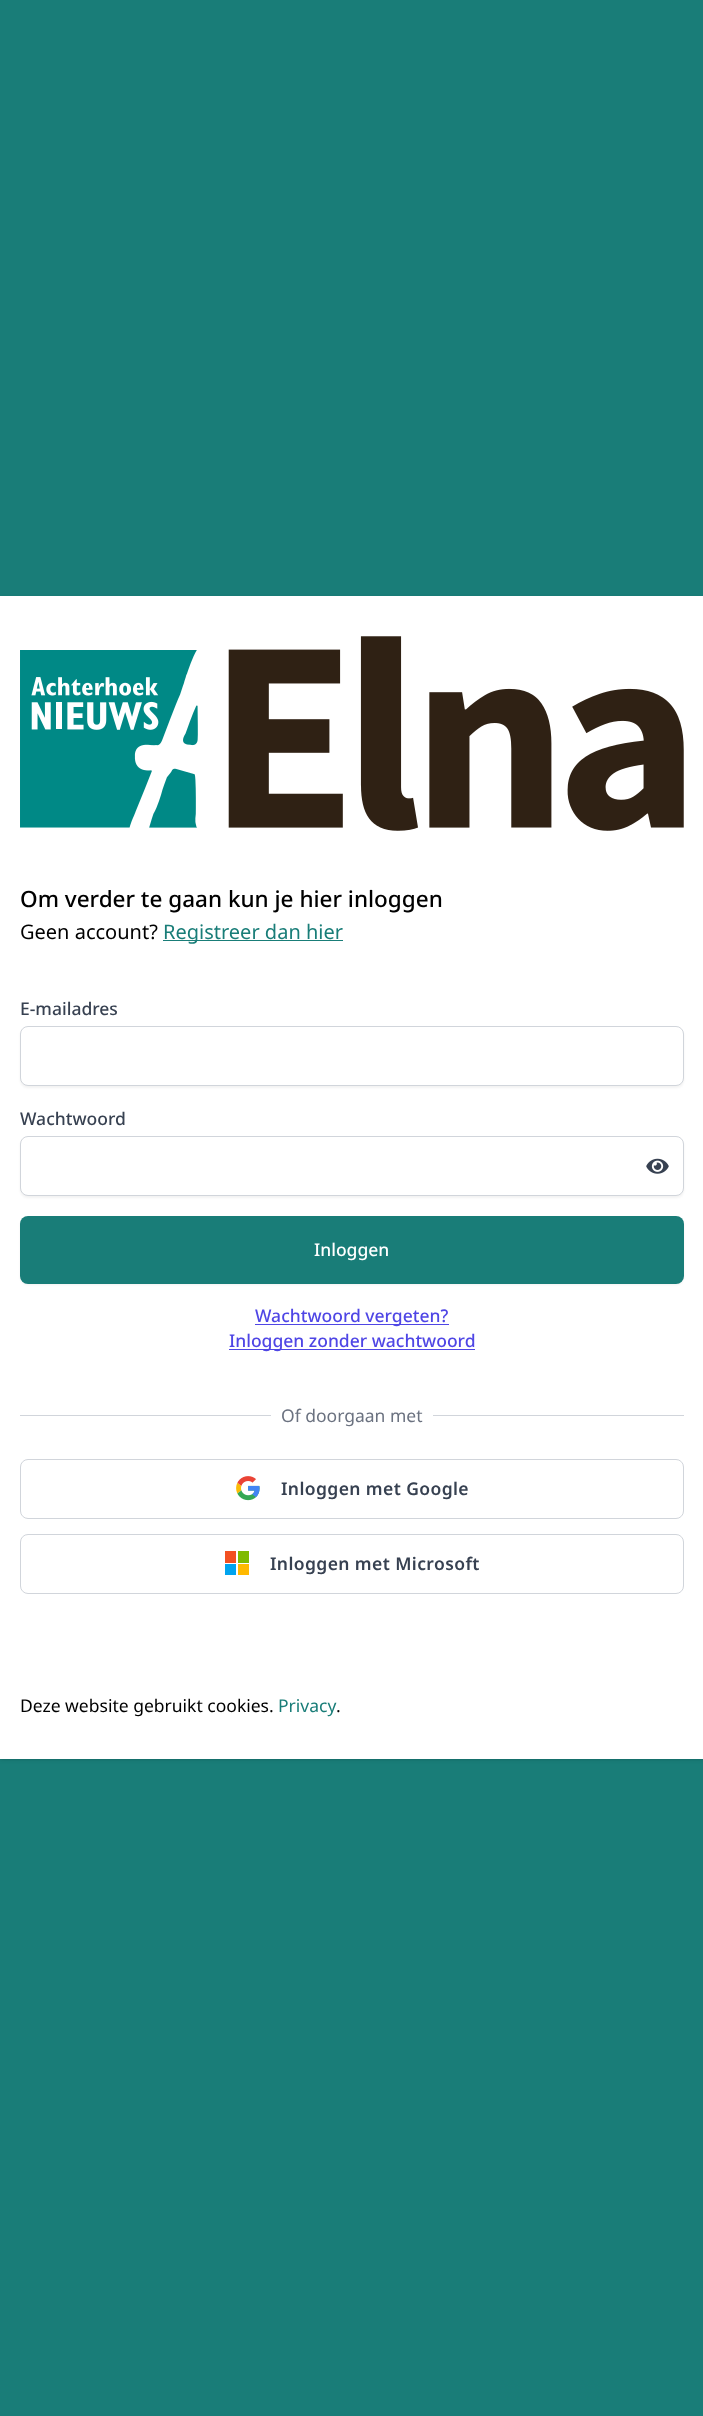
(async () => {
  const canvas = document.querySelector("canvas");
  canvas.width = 703;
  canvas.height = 2416;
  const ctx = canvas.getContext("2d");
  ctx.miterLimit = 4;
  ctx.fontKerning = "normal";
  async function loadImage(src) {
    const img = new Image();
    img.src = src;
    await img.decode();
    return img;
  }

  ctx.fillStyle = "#197d78";
  ctx.fillRect(0, 0, 703, 2416);
  ctx.fillStyle = "rgba(0, 0, 0, 0.1)";
  ctx.filter = "blur(1px)";
  ctx.beginPath();
  ctx.rect(1, 599, 702, 1160);
  ctx.fill();
  ctx.filter = "none";
  ctx.filter = "blur(2px)";
  ctx.beginPath();
  ctx.rect(0, 598, 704, 1162);
  ctx.fill();
  ctx.filter = "none";
  ctx.fillStyle = "#ffffff";
  ctx.fillRect(0, 596, 703, 1163);
  ctx.drawImage(await loadImage("img/1.png"), 20, 636, 664, 195);
  ctx.fillStyle = "#197d78";
  ctx.fillRect(163, 940, 180, 1);
  ctx.fillStyle = "rgba(0, 0, 0, 0.05)";
  ctx.filter = "blur(1px)";
  ctx.beginPath();
  ctx.roundRect(20, 1028, 664, 60, 8);
  ctx.fill();
  ctx.filter = "none";
  ctx.fillStyle = "#ffffff";
  ctx.beginPath();
  ctx.roundRect(20.5, 1026.5, 663, 59, 7.5);
  ctx.fill();
  ctx.strokeStyle = "#d1d5db";
  ctx.stroke();
  ctx.fillStyle = "rgba(0, 0, 0, 0.05)";
  ctx.filter = "blur(1px)";
  ctx.beginPath();
  ctx.roundRect(20, 1138, 664, 60, 8);
  ctx.fill();
  ctx.filter = "none";
  ctx.fillStyle = "#ffffff";
  ctx.beginPath();
  ctx.roundRect(20.5, 1136.5, 663, 59, 7.5);
  ctx.fill();
  ctx.stroke();
  ctx.drawImage(await loadImage("img/2.png"), 646, 1158, 23, 16);
  ctx.fillStyle = "rgba(0, 0, 0, 0.05)";
  ctx.filter = "blur(1px)";
  ctx.beginPath();
  ctx.roundRect(20, 1218, 664, 67, 8);
  ctx.fill();
  ctx.filter = "none";
  ctx.fillStyle = "#197d78";
  ctx.beginPath();
  ctx.roundRect(20, 1216, 664, 68, 8);
  ctx.fill();
  for (const [x, y, w, h, color] of [
    [255, 1324, 194, 1, "#4f46e5"],
    [229, 1349, 246, 1, "#4f46e5"],
    [20, 1415, 664, 1, "#d1d5db"],
    [271, 1415, 162, 1, "#ffffff"],
  ]) {
    ctx.fillStyle = color;
    ctx.fillRect(x, y, w, h);
  }
  ctx.beginPath();
  ctx.roundRect(20.5, 1459.5, 663, 59, 7.5);
  ctx.stroke();
  ctx.drawImage(await loadImage("img/3.png"), 236, 1476, 24, 25);
  ctx.beginPath();
  ctx.roundRect(20.5, 1534.5, 663, 59, 7.5);
  ctx.stroke();
  for (const [x, y, w, h, color] of [
    [225, 1551, 11, 12, "#f25022"],
    [225, 1564, 11, 11, "#00a4ef"],
    [238, 1551, 11, 12, "#7fba00"],
    [238, 1564, 11, 11, "#ffb900"],
  ]) {
    ctx.fillStyle = color;
    ctx.fillRect(x, y, w, h);
  }
  ctx.font = "500 22.5px Noto Sans";
  ctx.fillStyle = "#000000";
  ctx.fillText("Om verder te gaan kun je hier inloggen", 20, 907);
  ctx.font = "20px Noto Sans";
  ctx.fillText("Geen account?", 20, 939);
  ctx.fillStyle = "#197d78";
  ctx.fillText("Registreer dan hier", 163, 939);
  ctx.font = "500 17.5px Noto Sans";
  ctx.fillStyle = "#374151";
  ctx.fillText("E-mailadres", 20, 1015);
  ctx.fillText("Wachtwoord", 20, 1125);
  ctx.fillStyle = "#ffffff";
  ctx.fillText("Inloggen", 314, 1256);
  ctx.fillStyle = "#4f46e5";
  ctx.fillText("Wachtwoord vergeten?", 255, 1322);
  ctx.fillText("Inloggen zonder wachtwoord", 229, 1347);
  ctx.font = "17.5px Noto Sans";
  ctx.fillStyle = "#6b7280";
  ctx.fillText("Of doorgaan met", 281, 1422);
  ctx.letterSpacing = "0.4px";
  ctx.font = "600 17.5px Noto Sans";
  ctx.fillStyle = "#374151";
  ctx.fillText("Inloggen met Google", 281, 1495);
  ctx.fillText("Inloggen met Microsoft", 270, 1570);
  ctx.letterSpacing = "0px";
  ctx.font = "17.5px Noto Sans";
  ctx.fillStyle = "#000000";
  ctx.fillText("Deze website gebruikt cookies.", 20, 1712);
  ctx.fillStyle = "#197d78";
  ctx.fillText("Privacy", 278, 1712);
  ctx.fillStyle = "#000000";
  ctx.fillText(".", 336, 1712);
})();
